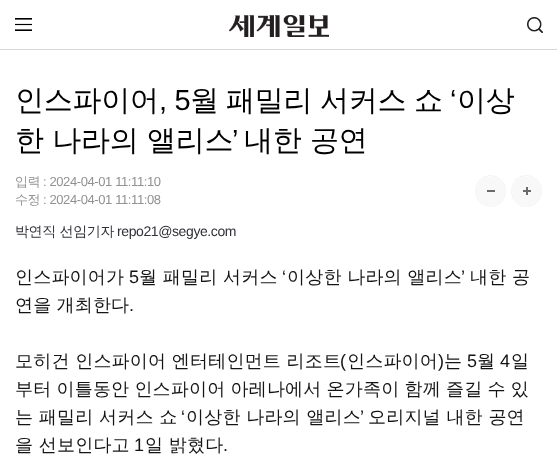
(async () => {
  const canvas = document.querySelector("canvas");
  canvas.width = 557;
  canvas.height = 463;
  const ctx = canvas.getContext("2d");
  ctx.miterLimit = 4;
  ctx.fontKerning = "normal";
  async function loadImage(src) {
    const img = new Image();
    img.src = src;
    await img.decode();
    return img;
  }

  ctx.fillStyle = "#ffffff";
  ctx.fillRect(0, 0, 557, 463);
  ctx.fillStyle = "#d8d8d8";
  ctx.fillRect(0, 49, 557, 1);
  ctx.drawImage(await loadImage("img/1.png"), 15, 18, 17, 13);
  ctx.drawImage(await loadImage("img/2.png"), 229, 15, 100, 22);
  ctx.drawImage(await loadImage("img/3.png"), 527, 17, 16, 16);
  ctx.beginPath();
  ctx.roundRect(475.5, 175.5, 30, 31, 15);
  ctx.strokeStyle = "#f3f3f3";
  ctx.stroke();
  ctx.drawImage(await loadImage("img/4.png"), 476, 177, 29, 28);
  ctx.beginPath();
  ctx.roundRect(511.5, 175.5, 30, 31, 15);
  ctx.stroke();
  ctx.drawImage(await loadImage("img/5.png"), 512, 177, 29, 28);
  ctx.letterSpacing = "-0.25px";
  ctx.font = "500 29px WenQuanYi Zen Hei";
  ctx.fillStyle = "#000000";
  ctx.fillText("인스파이어", 15, 110);
  ctx.font = "29px Liberation Sans";
  ctx.fillText(", 5", 159, 110);
  ctx.font = "500 29px WenQuanYi Zen Hei";
  for (const [text, x, y] of [
    ["월", 190, 110],
    ["패밀리", 226, 110],
    ["서커스", 320, 110],
    ["쇼", 414, 110],
  ]) {
    ctx.fillText(text, x, y);
  }
  ctx.font = "29px Liberation Sans";
  ctx.fillText("‘", 450, 110);
  ctx.font = "500 29px WenQuanYi Zen Hei";
  ctx.fillText("이상", 457, 110);
  ctx.fillText("한 나라의 앨리스", 15, 150);
  ctx.font = "29px Liberation Sans";
  ctx.fillText("’", 232, 150);
  ctx.font = "500 29px WenQuanYi Zen Hei";
  ctx.fillText("내한 공연", 244, 150);
  ctx.letterSpacing = "-0.4px";
  ctx.font = "500 13px WenQuanYi Zen Hei";
  ctx.fillStyle = "#929294";
  ctx.fillText("입력", 15, 186);
  ctx.font = "13px Liberation Sans";
  ctx.fillText(": 2024-04-01 11:11:10", 43, 186);
  ctx.font = "500 13px WenQuanYi Zen Hei";
  ctx.fillText("수정", 15, 204);
  ctx.font = "13px Liberation Sans";
  ctx.fillText(": 2024-04-01 11:11:08", 43, 204);
  ctx.font = "500 14px WenQuanYi Zen Hei";
  ctx.fillStyle = "#303038";
  ctx.fillText("박연직 선임기자", 15, 236);
  ctx.font = "14px Liberation Sans";
  ctx.fillText("repo21@segye.com", 117, 236);
  ctx.letterSpacing = "0.2px";
  ctx.font = "500 18px WenQuanYi Zen Hei";
  ctx.fillStyle = "#141414";
  ctx.fillText("인스파이어가", 15, 283);
  ctx.font = "18px Liberation Sans";
  ctx.fillText("5", 129, 283);
  ctx.font = "500 18px WenQuanYi Zen Hei";
  ctx.fillText("월 패밀리 서커스", 139, 283);
  ctx.font = "18px Liberation Sans";
  ctx.fillText("‘", 282, 283);
  ctx.font = "500 18px WenQuanYi Zen Hei";
  ctx.fillText("이상한 나라의 앨리스", 287, 283);
  ctx.font = "18px Liberation Sans";
  ctx.fillText("’", 461, 283);
  ctx.font = "500 18px WenQuanYi Zen Hei";
  ctx.fillText("내한 공", 470, 283);
  ctx.wordSpacing = "-0.5px";
  ctx.fillText("연을 개최한다", 15, 311);
  ctx.wordSpacing = "0px";
  ctx.font = "18px Liberation Sans";
  ctx.fillText(".", 129, 311);
  ctx.font = "500 18px WenQuanYi Zen Hei";
  ctx.fillText("모히건 인스파이어 엔터테인먼트 리조트", 15, 367);
  ctx.font = "18px Liberation Sans";
  ctx.fillText("(", 340, 367);
  ctx.font = "500 18px WenQuanYi Zen Hei";
  ctx.fillText("인스파이어", 347, 367);
  ctx.font = "18px Liberation Sans";
  ctx.fillText(")", 438, 367);
  ctx.font = "500 18px WenQuanYi Zen Hei";
  ctx.fillText("는", 444, 367);
  ctx.font = "18px Liberation Sans";
  ctx.fillText("5", 467, 367);
  ctx.font = "500 18px WenQuanYi Zen Hei";
  ctx.fillText("월", 477, 367);
  ctx.font = "18px Liberation Sans";
  ctx.fillText("4", 500, 367);
  ctx.font = "500 18px WenQuanYi Zen Hei";
  ctx.fillText("일", 511, 367);
  ctx.wordSpacing = "-0.5px";
  ctx.fillText("부터 이틀동안 인스파이어 아레나에서 온가족이 함께 즐길 수 있", 15, 395);
  ctx.wordSpacing = "0px";
  ctx.fillText("는 패밀리 서커스 쇼", 15, 423);
  ctx.font = "18px Liberation Sans";
  ctx.fillText("‘", 181, 423);
  ctx.font = "500 18px WenQuanYi Zen Hei";
  ctx.fillText("이상한 나라의 앨리스", 186, 423);
  ctx.font = "18px Liberation Sans";
  ctx.fillText("’", 360, 423);
  ctx.font = "500 18px WenQuanYi Zen Hei";
  ctx.fillText("오리지널 내한 공연", 368, 423);
  ctx.fillText("을 선보인다고", 15, 451);
  ctx.font = "18px Liberation Sans";
  ctx.fillText("1", 134, 451);
  ctx.font = "500 18px WenQuanYi Zen Hei";
  ctx.fillText("일 밝혔다", 145, 451);
  ctx.font = "18px Liberation Sans";
  ctx.fillText(".", 223, 451);
})();
